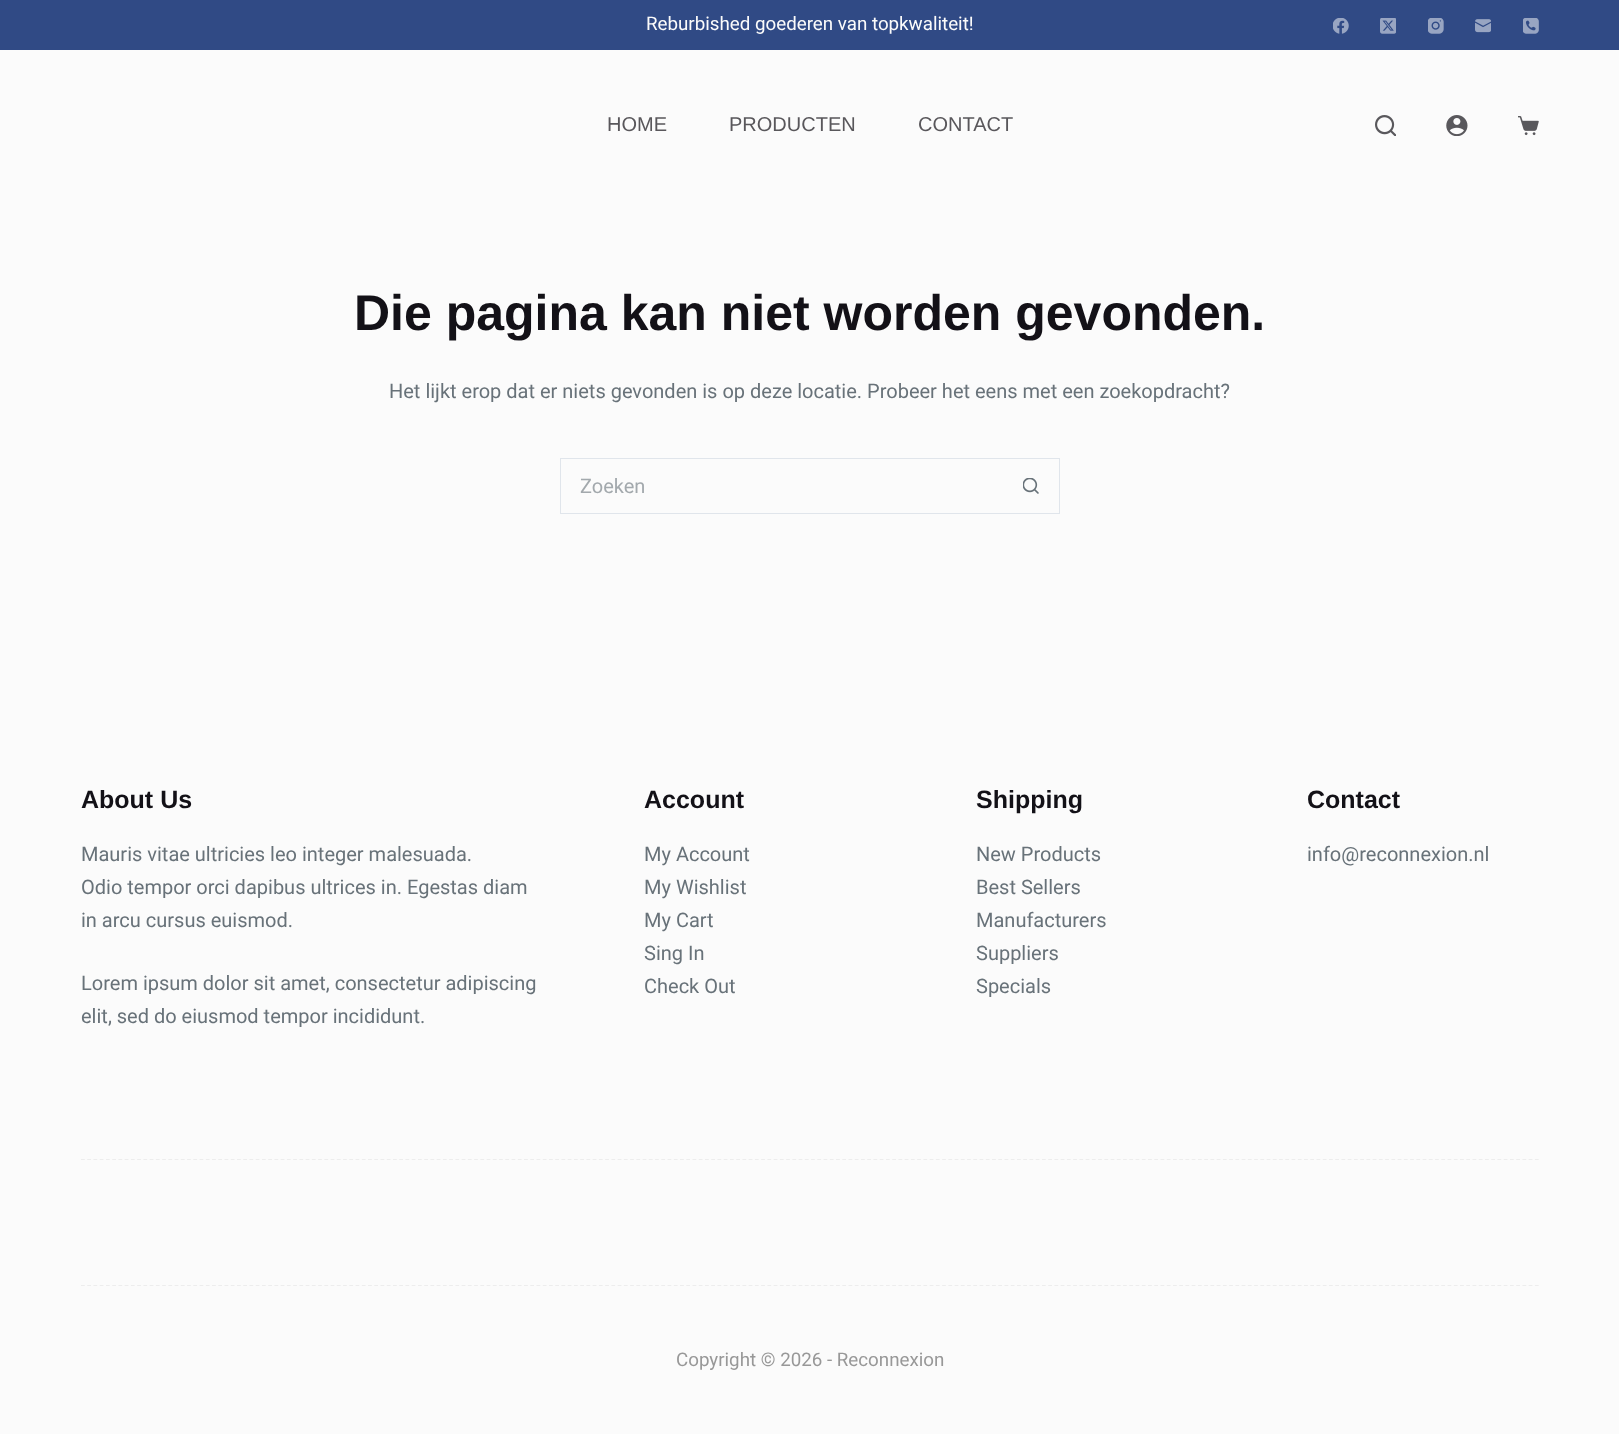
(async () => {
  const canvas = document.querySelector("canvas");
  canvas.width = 1619;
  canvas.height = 1434;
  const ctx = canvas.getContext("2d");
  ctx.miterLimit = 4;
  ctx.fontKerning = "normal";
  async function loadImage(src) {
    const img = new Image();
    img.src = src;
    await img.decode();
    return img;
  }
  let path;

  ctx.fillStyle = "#fbfbfb";
  ctx.fillRect(0, 0, 1619, 1434);
  ctx.fillStyle = "#304a85";
  ctx.fillRect(0, 0, 1619, 50);
  ctx.drawImage(await loadImage("img/1.png"), 1333, 18, 16, 16);
  ctx.drawImage(await loadImage("img/2.png"), 1380, 18, 16, 16);
  ctx.drawImage(await loadImage("img/3.png"), 1428, 18, 16, 16);
  ctx.drawImage(await loadImage("img/4.png"), 1475, 19, 16, 14);
  ctx.drawImage(await loadImage("img/5.png"), 1523, 18, 16, 16);
  ctx.drawImage(await loadImage("img/6.png"), 1375, 115, 21, 21);
  ctx.drawImage(await loadImage("img/7.png"), 1446, 115, 22, 21);
  ctx.drawImage(await loadImage("img/8.png"), 1518, 116, 21, 20);
  for (const [x, y, w, h, color] of [
    [560, 458, 500, 1, "#e0e5eb"],
    [560, 513, 444, 1, "#e0e5eb"],
    [560, 458, 1, 56, "#e0e5eb"],
    [1059, 458, 1, 56, "#e0e5eb"],
    [1004, 513, 56, 1, "#e0e5eb"],
  ]) {
    ctx.fillStyle = color;
    ctx.fillRect(x, y, w, h);
  }
  ctx.drawImage(await loadImage("img/9.png"), 1023, 478, 16, 16);
  path = new Path2D("M81 1159.5H1539");
  ctx.strokeStyle = "#ededed";
  ctx.lineWidth = 1.2;
  ctx.setLineDash([3.75, 2.49]);
  ctx.stroke(path);
  path = new Path2D("M81 1285.5H1539");
  ctx.stroke(path);
  ctx.font = "18.75px Roboto";
  ctx.fillStyle = "#fbfbfb";
  ctx.fillText("Reburbished goederen van topkwaliteit!", 646, 30);
  ctx.font = "20px Liberation Sans";
  ctx.fillStyle = "#59575b";
  for (const [text, x, y] of [
    ["HOME", 607, 131],
    ["PRODUCTEN", 729, 131],
    ["CONTACT", 918, 131],
  ]) {
    ctx.fillText(text, x, y);
  }
  ctx.font = "bold 50px Liberation Sans";
  ctx.fillStyle = "#131117";
  ctx.fillText("Die pagina kan niet worden gevonden.", 354, 330);
  ctx.font = "20px Roboto";
  ctx.fillStyle = "#687279";
  ctx.fillText("Het lijkt erop dat er niets gevonden is op deze locatie. Probeer het eens met een zoekopdracht?", 389, 398);
  ctx.fillStyle = "#a3a9ad";
  ctx.fillText("Zoeken", 580, 493);
  ctx.font = "bold 25px Liberation Sans";
  ctx.fillStyle = "#131117";
  ctx.fillText("About Us", 81, 808);
  ctx.font = "20px Roboto";
  ctx.fillStyle = "#687279";
  for (const [text, x, y] of [
    ["Mauris vitae ultricies leo integer malesuada.", 81, 861],
    ["Odio tempor orci dapibus ultrices in. Egestas diam", 81, 894],
    ["in arcu cursus euismod.", 81, 927],
    ["Lorem ipsum dolor sit amet, consectetur adipiscing", 81, 990],
    ["elit, sed do eiusmod tempor incididunt.", 81, 1023],
  ]) {
    ctx.fillText(text, x, y);
  }
  ctx.font = "bold 25px Liberation Sans";
  ctx.fillStyle = "#131117";
  ctx.fillText("Account", 644, 808);
  ctx.font = "20px Roboto";
  ctx.fillStyle = "#687279";
  for (const [text, x, y] of [
    ["My Account", 644, 861],
    ["My Wishlist", 644, 894],
    ["My Cart", 644, 927],
    ["Sing In", 644, 960],
    ["Check Out", 644, 993],
  ]) {
    ctx.fillText(text, x, y);
  }
  ctx.font = "bold 25px Liberation Sans";
  ctx.fillStyle = "#131117";
  ctx.fillText("Shipping", 976, 808);
  ctx.font = "20px Roboto";
  ctx.fillStyle = "#687279";
  for (const [text, x, y] of [
    ["New Products", 976, 861],
    ["Best Sellers", 976, 894],
    ["Manufacturers", 976, 927],
    ["Suppliers", 976, 960],
    ["Specials", 976, 993],
  ]) {
    ctx.fillText(text, x, y);
  }
  ctx.font = "bold 25px Liberation Sans";
  ctx.fillStyle = "#131117";
  ctx.fillText("Contact", 1307, 808);
  ctx.font = "20px Roboto";
  ctx.fillStyle = "#687279";
  ctx.fillText("info@reconnexion.nl", 1307, 861);
  ctx.font = "18.75px Roboto";
  ctx.fillStyle = "#989898";
  ctx.fillText("Copyright © 2026 - Reconnexion", 676, 1366);
})();
